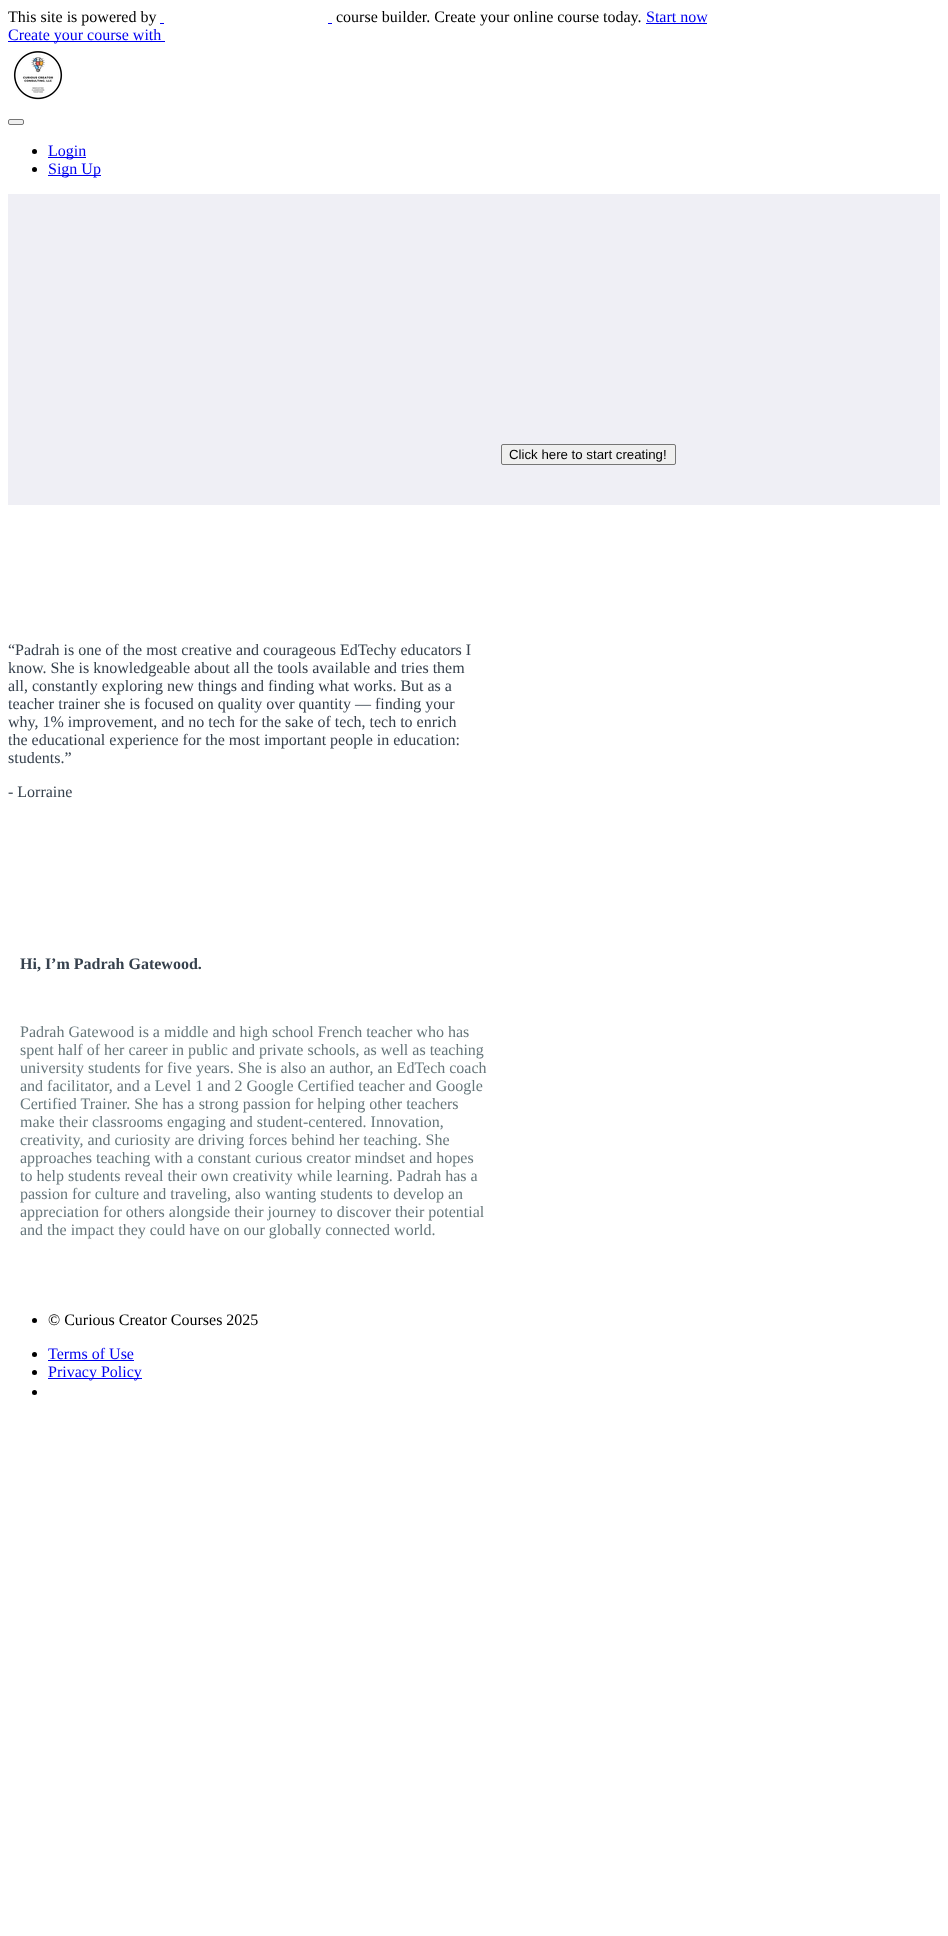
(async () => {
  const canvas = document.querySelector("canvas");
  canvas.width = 948;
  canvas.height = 1936;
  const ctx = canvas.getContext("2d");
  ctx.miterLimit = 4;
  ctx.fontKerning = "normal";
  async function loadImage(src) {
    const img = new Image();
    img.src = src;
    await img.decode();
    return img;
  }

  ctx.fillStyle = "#ffffff";
  ctx.fillRect(0, 0, 948, 1936);
  for (const [x, y, w, h, color] of [
    [646, 23, 61, 1, "#0000ee"],
    [160, 23, 4, 1, "#0000ee"],
    [328, 23, 4, 1, "#0000ee"],
    [8, 41, 157, 1, "#0000ee"],
  ]) {
    ctx.fillStyle = color;
    ctx.fillRect(x, y, w, h);
  }
  ctx.drawImage(await loadImage("img/1.png"), 13, 51, 50, 49);
  ctx.fillStyle = "#efefef";
  ctx.beginPath();
  ctx.roundRect(8.5, 119.5, 15, 5, 1.5);
  ctx.fill();
  ctx.strokeStyle = "#767676";
  ctx.stroke();
  ctx.fillStyle = "#000000";
  ctx.beginPath();
  ctx.arc(34.5, 151.5, 2.5, 0, Math.PI * 2);
  ctx.fill();
  ctx.fillStyle = "#0000ee";
  ctx.fillRect(48, 157, 38, 1);
  ctx.fillStyle = "#000000";
  ctx.beginPath();
  ctx.arc(34.5, 169.5, 2.5, 0, Math.PI * 2);
  ctx.fill();
  ctx.fillStyle = "#0000ee";
  ctx.fillRect(48, 175, 53, 1);
  ctx.fillStyle = "#efeff5";
  ctx.fillRect(8, 194, 932, 311);
  ctx.fillStyle = "#efefef";
  ctx.beginPath();
  ctx.roundRect(501.5, 444.5, 174, 20, 1.5);
  ctx.fill();
  ctx.stroke();
  ctx.fillStyle = "#000000";
  ctx.beginPath();
  ctx.arc(34.5, 1320.5, 2.5, 0, Math.PI * 2);
  ctx.fill();
  ctx.beginPath();
  ctx.arc(34.5, 1354.5, 2.5, 0, Math.PI * 2);
  ctx.fill();
  ctx.fillStyle = "#0000ee";
  ctx.fillRect(48, 1360, 86, 1);
  ctx.fillStyle = "#000000";
  ctx.beginPath();
  ctx.arc(34.5, 1372.5, 2.5, 0, Math.PI * 2);
  ctx.fill();
  ctx.fillStyle = "#0000ee";
  ctx.fillRect(48, 1378, 94, 1);
  ctx.fillStyle = "#000000";
  ctx.beginPath();
  ctx.arc(34.5, 1392.5, 2.5, 0, Math.PI * 2);
  ctx.fill();
  ctx.font = "16px Liberation Serif";
  ctx.fillText("This site is powered by", 8, 22);
  ctx.fillText("course builder. Create your online course today.", 336, 22);
  ctx.fillStyle = "#0000ee";
  for (const [text, x, y] of [
    ["Start now", 646, 22],
    ["Create your course with", 8, 40],
    ["Login", 48, 156],
    ["Sign Up", 48, 174],
  ]) {
    ctx.fillText(text, x, y);
  }
  ctx.font = "13.25px Liberation Sans";
  ctx.fillStyle = "#000000";
  ctx.fillText("Click here to start creating!", 509, 459);
  ctx.font = "16px Liberation Serif";
  ctx.fillStyle = "#36414d";
  for (const [text, x, y] of [
    ["“Padrah is one of the most creative and courageous EdTechy educators I", 8, 655],
    ["know. She is knowledgeable about all the tools available and tries them", 8, 673],
    ["all, constantly exploring new things and finding what works. But as a", 8, 691],
    ["teacher trainer she is focused on quality over quantity — finding your", 8, 709],
    ["why, 1% improvement, and no tech for the sake of tech, tech to enrich", 8, 727],
    ["the educational experience for the most important people in education:", 8, 745],
    ["students.”", 8, 763],
    ["- Lorraine", 8, 797],
  ]) {
    ctx.fillText(text, x, y);
  }
  ctx.font = "bold 16px Liberation Serif";
  ctx.fillText("Hi, I’m Padrah Gatewood.", 20, 969);
  ctx.font = "16px Liberation Serif";
  ctx.fillStyle = "#67777c";
  for (const [text, x, y] of [
    ["Padrah Gatewood is a middle and high school French teacher who has", 20, 1037],
    ["spent half of her career in public and private schools, as well as teaching", 20, 1055],
    ["university students for five years. She is also an author, an EdTech coach", 20, 1073],
    ["and facilitator, and a Level 1 and 2 Google Certified teacher and Google", 20, 1091],
    ["Certified Trainer. She has a strong passion for helping other teachers", 20, 1109],
    ["make their classrooms engaging and student-centered. Innovation,", 20, 1127],
    ["creativity, and curiosity are driving forces behind her teaching. She", 20, 1145],
    ["approaches teaching with a constant curious creator mindset and hopes", 20, 1163],
    ["to help students reveal their own creativity while learning. Padrah has a", 20, 1181],
    ["passion for culture and traveling, also wanting students to develop an", 20, 1199],
    ["appreciation for others alongside their journey to discover their potential", 20, 1217],
    ["and the impact they could have on our globally connected world.", 20, 1235],
  ]) {
    ctx.fillText(text, x, y);
  }
  ctx.fillStyle = "#000000";
  ctx.fillText("© Curious Creator Courses 2025", 48, 1325);
  ctx.fillStyle = "#0000ee";
  ctx.fillText("Terms of Use", 48, 1359);
  ctx.fillText("Privacy Policy", 48, 1377);
})();
